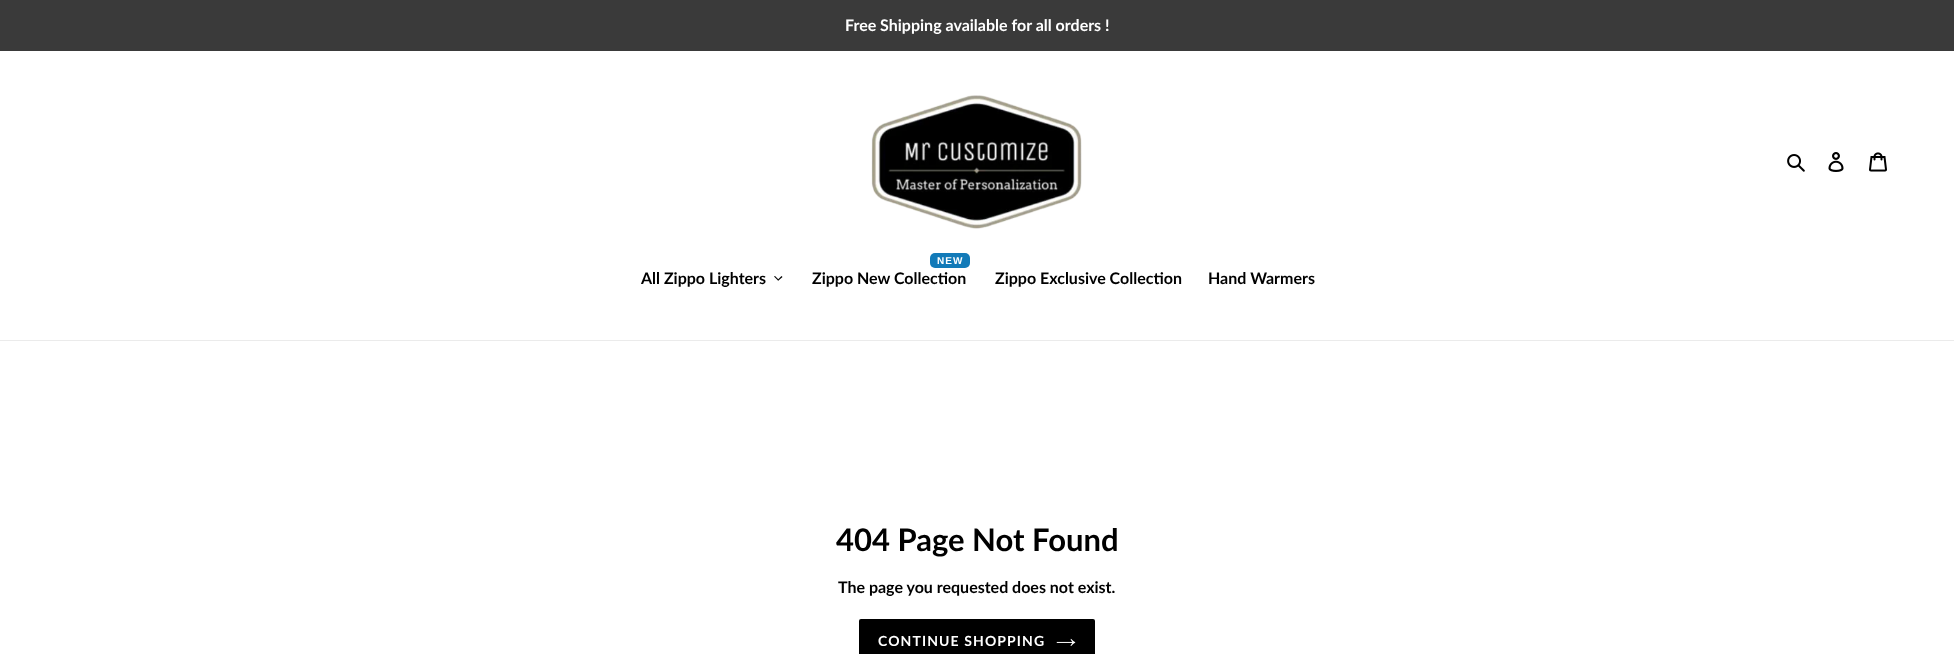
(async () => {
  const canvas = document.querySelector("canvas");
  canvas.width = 1954;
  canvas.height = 654;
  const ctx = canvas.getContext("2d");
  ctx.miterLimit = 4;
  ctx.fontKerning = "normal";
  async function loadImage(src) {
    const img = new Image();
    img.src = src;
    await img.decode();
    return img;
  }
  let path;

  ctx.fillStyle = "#ffffff";
  ctx.fillRect(0, 0, 1954, 654);
  ctx.fillStyle = "#3a3a3a";
  ctx.fillRect(0, 0, 1954, 51);
  ctx.drawImage(await loadImage("img/1.png"), 871, 95, 211, 134);
  ctx.drawImage(await loadImage("img/2.png"), 1787, 154, 18, 18);
  ctx.drawImage(await loadImage("img/3.png"), 1828, 152, 16, 20);
  ctx.drawImage(await loadImage("img/4.png"), 1869, 152, 18, 20);
  ctx.fillStyle = "#ebebeb";
  ctx.fillRect(0, 340, 1954, 1);
  ctx.fillStyle = "#000000";
  path = new Path2D("M781.5 276L782.5 277L778.5 280.5L777.5 280Z");
  ctx.fill(path);
  path = new Path2D("M775 276L779 280L778 280.5L774 276.5Z");
  ctx.fill(path);
  ctx.fillStyle = "#127ab8";
  ctx.beginPath();
  ctx.roundRect(930, 253, 40, 15, 5);
  ctx.fill();
  ctx.fillStyle = "#000000";
  ctx.beginPath();
  ctx.roundRect(859, 619, 236, 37, 2);
  ctx.fill();
  ctx.drawImage(await loadImage("img/5.png"), 1056, 638, 20, 8);
  ctx.font = "bold 16px Lato";
  ctx.fillStyle = "#ffffff";
  ctx.fillText("Free Shipping available for all orders !", 845, 31);
  ctx.fillStyle = "#000000";
  ctx.fillText("All Zippo Lighters", 641, 284);
  ctx.letterSpacing = "1px";
  ctx.font = "bold 10px Liberation Sans";
  ctx.fillStyle = "#ffffff";
  ctx.fillText("NEW", 937, 264);
  ctx.letterSpacing = "0px";
  ctx.font = "bold 16px Lato";
  ctx.fillStyle = "#000000";
  for (const [text, x, y] of [
    ["Zippo New Collection", 812, 284],
    ["Zippo Exclusive Collection", 995, 284],
    ["Hand Warmers", 1208, 284],
  ]) {
    ctx.fillText(text, x, y);
  }
  ctx.font = "bold 31px Lato";
  ctx.fillText("404 Page Not Found", 836, 551);
  ctx.font = "bold 16px Lato";
  ctx.fillText("The page you requested does not exist.", 838, 593);
  ctx.letterSpacing = "1.1px";
  ctx.font = "bold 14px Lato";
  ctx.fillStyle = "#ffffff";
  ctx.fillText("CONTINUE SHOPPING", 878, 646);
})();
